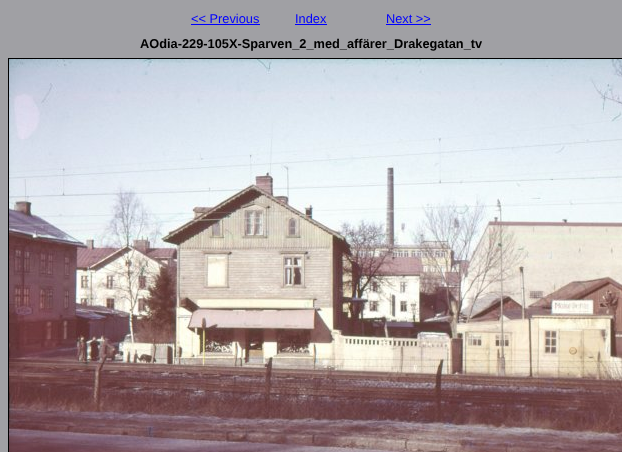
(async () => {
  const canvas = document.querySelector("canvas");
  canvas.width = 622;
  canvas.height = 452;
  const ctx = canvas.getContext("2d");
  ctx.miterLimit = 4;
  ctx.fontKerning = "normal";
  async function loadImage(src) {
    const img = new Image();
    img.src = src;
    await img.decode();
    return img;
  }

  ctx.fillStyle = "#a0a0a4";
  ctx.fillRect(0, 0, 622, 452);
  for (const [x, y, w, h, color] of [
    [191, 24, 69, 1, "#0000ff"],
    [295, 24, 32, 1, "#0000ff"],
    [386, 24, 45, 1, "#0000ff"],
  ]) {
    ctx.fillStyle = color;
    ctx.fillRect(x, y, w, h);
  }
  ctx.strokeStyle = "#000000";
  ctx.strokeRect(8.5, 58.5, 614, 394);
  ctx.drawImage(await loadImage("img/1.png"), 9, 59, 613, 393);
  ctx.font = "12.8px Liberation Sans";
  for (const [text, x, y] of [
    ["<< Previous", 191, 23],
    ["Index", 295, 23],
    ["Next >>", 386, 23],
  ]) {
    ctx.fillText(text, x, y);
  }
  ctx.font = "bold 12.8px Liberation Sans";
  ctx.fillStyle = "#000000";
  ctx.fillText("AOdia-229-105X-Sparven_2_med_affärer_Drakegatan_tv", 140, 48);
})();
